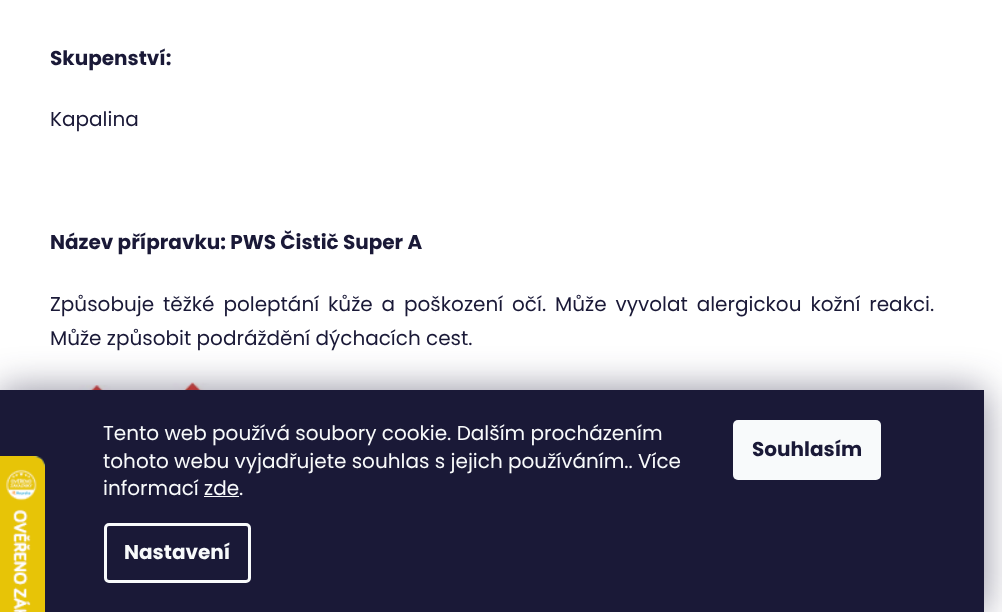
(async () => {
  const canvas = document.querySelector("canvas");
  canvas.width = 1002;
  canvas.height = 612;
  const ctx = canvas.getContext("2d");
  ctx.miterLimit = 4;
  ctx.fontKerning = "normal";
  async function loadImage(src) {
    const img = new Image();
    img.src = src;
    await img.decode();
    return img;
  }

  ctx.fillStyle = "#ffffff";
  ctx.fillRect(0, 0, 1002, 612);
  ctx.drawImage(await loadImage("img/1.png"), 50, 385, 94, 5);
  ctx.drawImage(await loadImage("img/2.png"), 143, 382, 99, 8);
  ctx.fillStyle = "rgba(27, 25, 57, 0.5)";
  ctx.filter = "blur(19px)";
  ctx.beginPath();
  ctx.rect(0, 390, 984, 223);
  ctx.fill();
  ctx.filter = "none";
  ctx.fillStyle = "#1a1937";
  ctx.fillRect(0, 390, 984, 222);
  ctx.drawImage(await loadImage("img/3.png"), 0, 456, 45, 156);
  ctx.fillStyle = "#f8fafb";
  ctx.fillRect(204, 496, 35, 1);
  ctx.beginPath();
  ctx.roundRect(105.5, 524.5, 144, 57, 3.5);
  ctx.strokeStyle = "#f8fafb";
  ctx.lineWidth = 3;
  ctx.stroke();
  ctx.beginPath();
  ctx.roundRect(733, 420, 148, 60, 5);
  ctx.fill();
  ctx.font = "bold 20px Poppins";
  ctx.fillStyle = "#1a1937";
  ctx.fillText("Skupenství:", 50, 65);
  ctx.font = "20px Poppins";
  ctx.fillText("Kapalina", 50, 126);
  ctx.font = "bold 20px Poppins";
  ctx.fillText("Název přípravku: PWS Čistič Super A", 50, 249);
  ctx.wordSpacing = "3.6px";
  ctx.font = "20px Poppins";
  ctx.fillText("Způsobuje těžké poleptání kůže a poškození očí. Může vyvolat alergickou kožní reakci.", 50, 311);
  ctx.wordSpacing = "0px";
  ctx.fillText("Může způsobit podráždění dýchacích cest.", 50, 345);
  ctx.fillStyle = "#f8fafb";
  for (const [text, x, y] of [
    ["Tento web používá soubory cookie. Dalším procházením", 103, 440],
    ["tohoto webu vyjadřujete souhlas s jejich používáním.. Více", 103, 468],
    ["informací zde.", 103, 495],
  ]) {
    ctx.fillText(text, x, y);
  }
  ctx.font = "bold 20px Poppins";
  ctx.fillText("Nastavení", 124, 559);
  ctx.fillStyle = "#1a1937";
  ctx.fillText("Souhlasím", 752, 456);
})();
